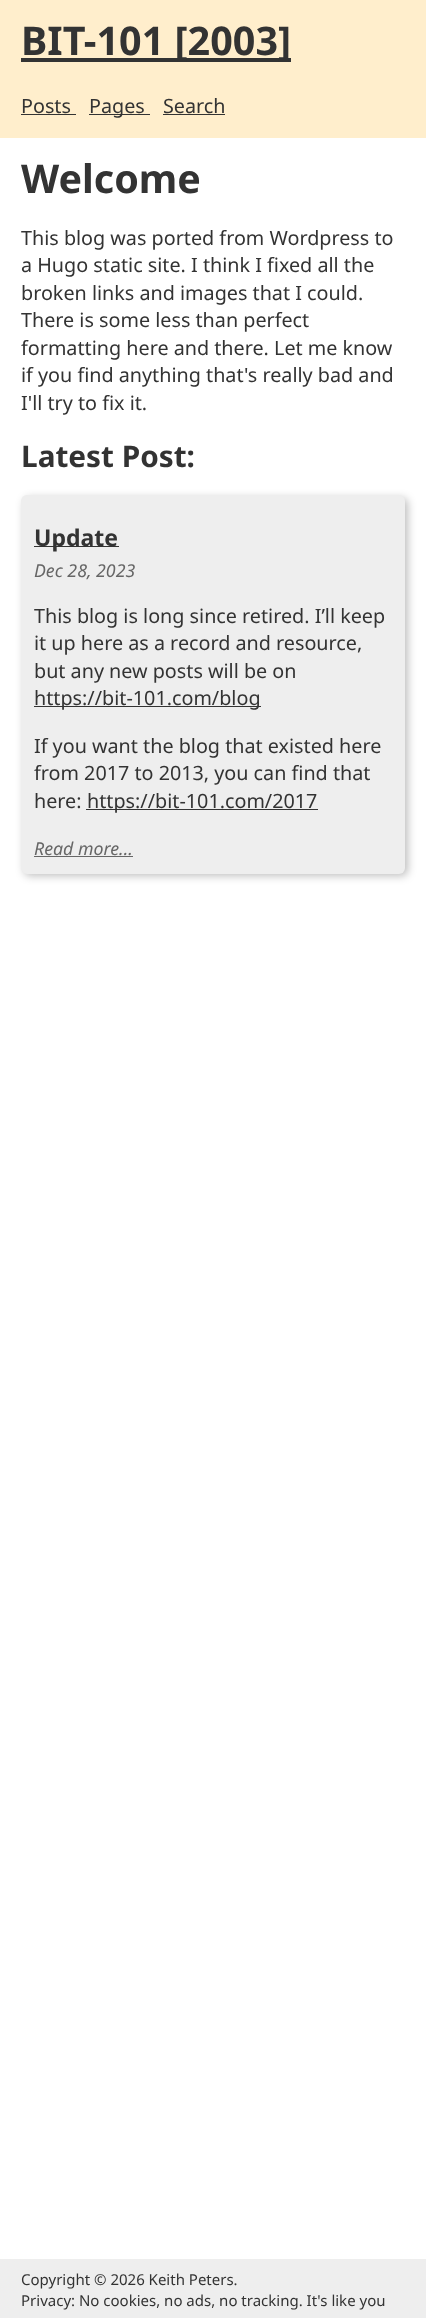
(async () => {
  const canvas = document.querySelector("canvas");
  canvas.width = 426;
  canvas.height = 2318;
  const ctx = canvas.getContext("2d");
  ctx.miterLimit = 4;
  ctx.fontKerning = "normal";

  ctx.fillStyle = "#ffffff";
  ctx.fillRect(0, 0, 426, 2318);
  for (const [x, y, w, h, color] of [
    [0, 0, 426, 138, "#ffeecc"],
    [21, 58, 270, 4, "#333333"],
    [21, 114, 55, 1, "#333333"],
    [89, 114, 61, 1, "#333333"],
    [163, 114, 62, 1, "#333333"],
  ]) {
    ctx.fillStyle = color;
    ctx.fillRect(x, y, w, h);
  }
  ctx.fillStyle = "rgba(0, 0, 0, 0.25)";
  ctx.filter = "blur(4px)";
  ctx.beginPath();
  ctx.roundRect(24, 498, 384, 378, 6);
  ctx.fill();
  ctx.filter = "none";
  ctx.fillStyle = "#eeeeee";
  ctx.beginPath();
  ctx.roundRect(21, 495, 384, 379, 6);
  ctx.fill();
  for (const [x, y, w, h, color] of [
    [34, 546, 85, 1, "#333333"],
    [34, 706, 227, 1, "#333333"],
    [86, 809, 232, 1, "#333333"],
    [34, 856, 99, 1, "#666666"],
    [0, 2259, 426, 59, "#eeeeee"],
  ]) {
    ctx.fillStyle = color;
    ctx.fillRect(x, y, w, h);
  }
  ctx.font = "bold 39.5px Noto Sans";
  ctx.fillStyle = "#333333";
  ctx.fillText("BIT-101 [2003]", 21, 55);
  ctx.font = "19.75px Noto Sans";
  for (const [text, x, y] of [
    ["Posts", 21, 113],
    ["Pages", 89, 113],
    ["Search", 163, 113],
  ]) {
    ctx.fillText(text, x, y);
  }
  ctx.font = "bold 39.5px Noto Sans";
  ctx.fillText("Welcome", 21, 193);
  ctx.font = "19.75px Noto Sans";
  for (const [text, x, y] of [
    ["This blog was ported from Wordpress to", 21, 245],
    ["a Hugo static site. I think I fixed all the", 21, 272],
    ["broken links and images that I could.", 21, 300],
    ["There is some less than perfect", 21, 327],
    ["formatting here and there. Let me know", 21, 355],
    ["if you find anything that's really bad and", 21, 382],
    ["I'll try to fix it.", 21, 410],
  ]) {
    ctx.fillText(text, x, y);
  }
  ctx.font = "bold 29.75px Noto Sans";
  ctx.fillText("Latest Post:", 21, 467);
  ctx.font = "bold 23px Noto Sans";
  ctx.fillText("Update", 34, 546);
  ctx.font = "italic 17.75px Noto Sans";
  ctx.fillStyle = "#666666";
  ctx.fillText("Dec 28, 2023", 34, 577);
  ctx.font = "19.75px Noto Sans";
  ctx.fillStyle = "#333333";
  for (const [text, x, y] of [
    ["This blog is long since retired. I’ll keep", 34, 623],
    ["it up here as a record and resource,", 34, 650],
    ["but any new posts will be on", 34, 678],
    ["https://bit-101.com/blog", 34, 705],
    ["If you want the blog that existed here", 34, 753],
    ["from 2017 to 2013, you can find that", 34, 780],
    ["here:", 34, 808],
    ["https://bit-101.com/2017", 87, 808],
  ]) {
    ctx.fillText(text, x, y);
  }
  ctx.font = "italic 17.75px Noto Sans";
  ctx.fillStyle = "#666666";
  ctx.fillText("Read more...", 34, 855);
  ctx.font = "15px Noto Sans";
  ctx.fillStyle = "#333333";
  ctx.fillText("Copyright © 2026 Keith Peters.", 21, 2285);
  ctx.fillText("Privacy: No cookies, no ads, no tracking. It's like you", 21, 2306);
})();
